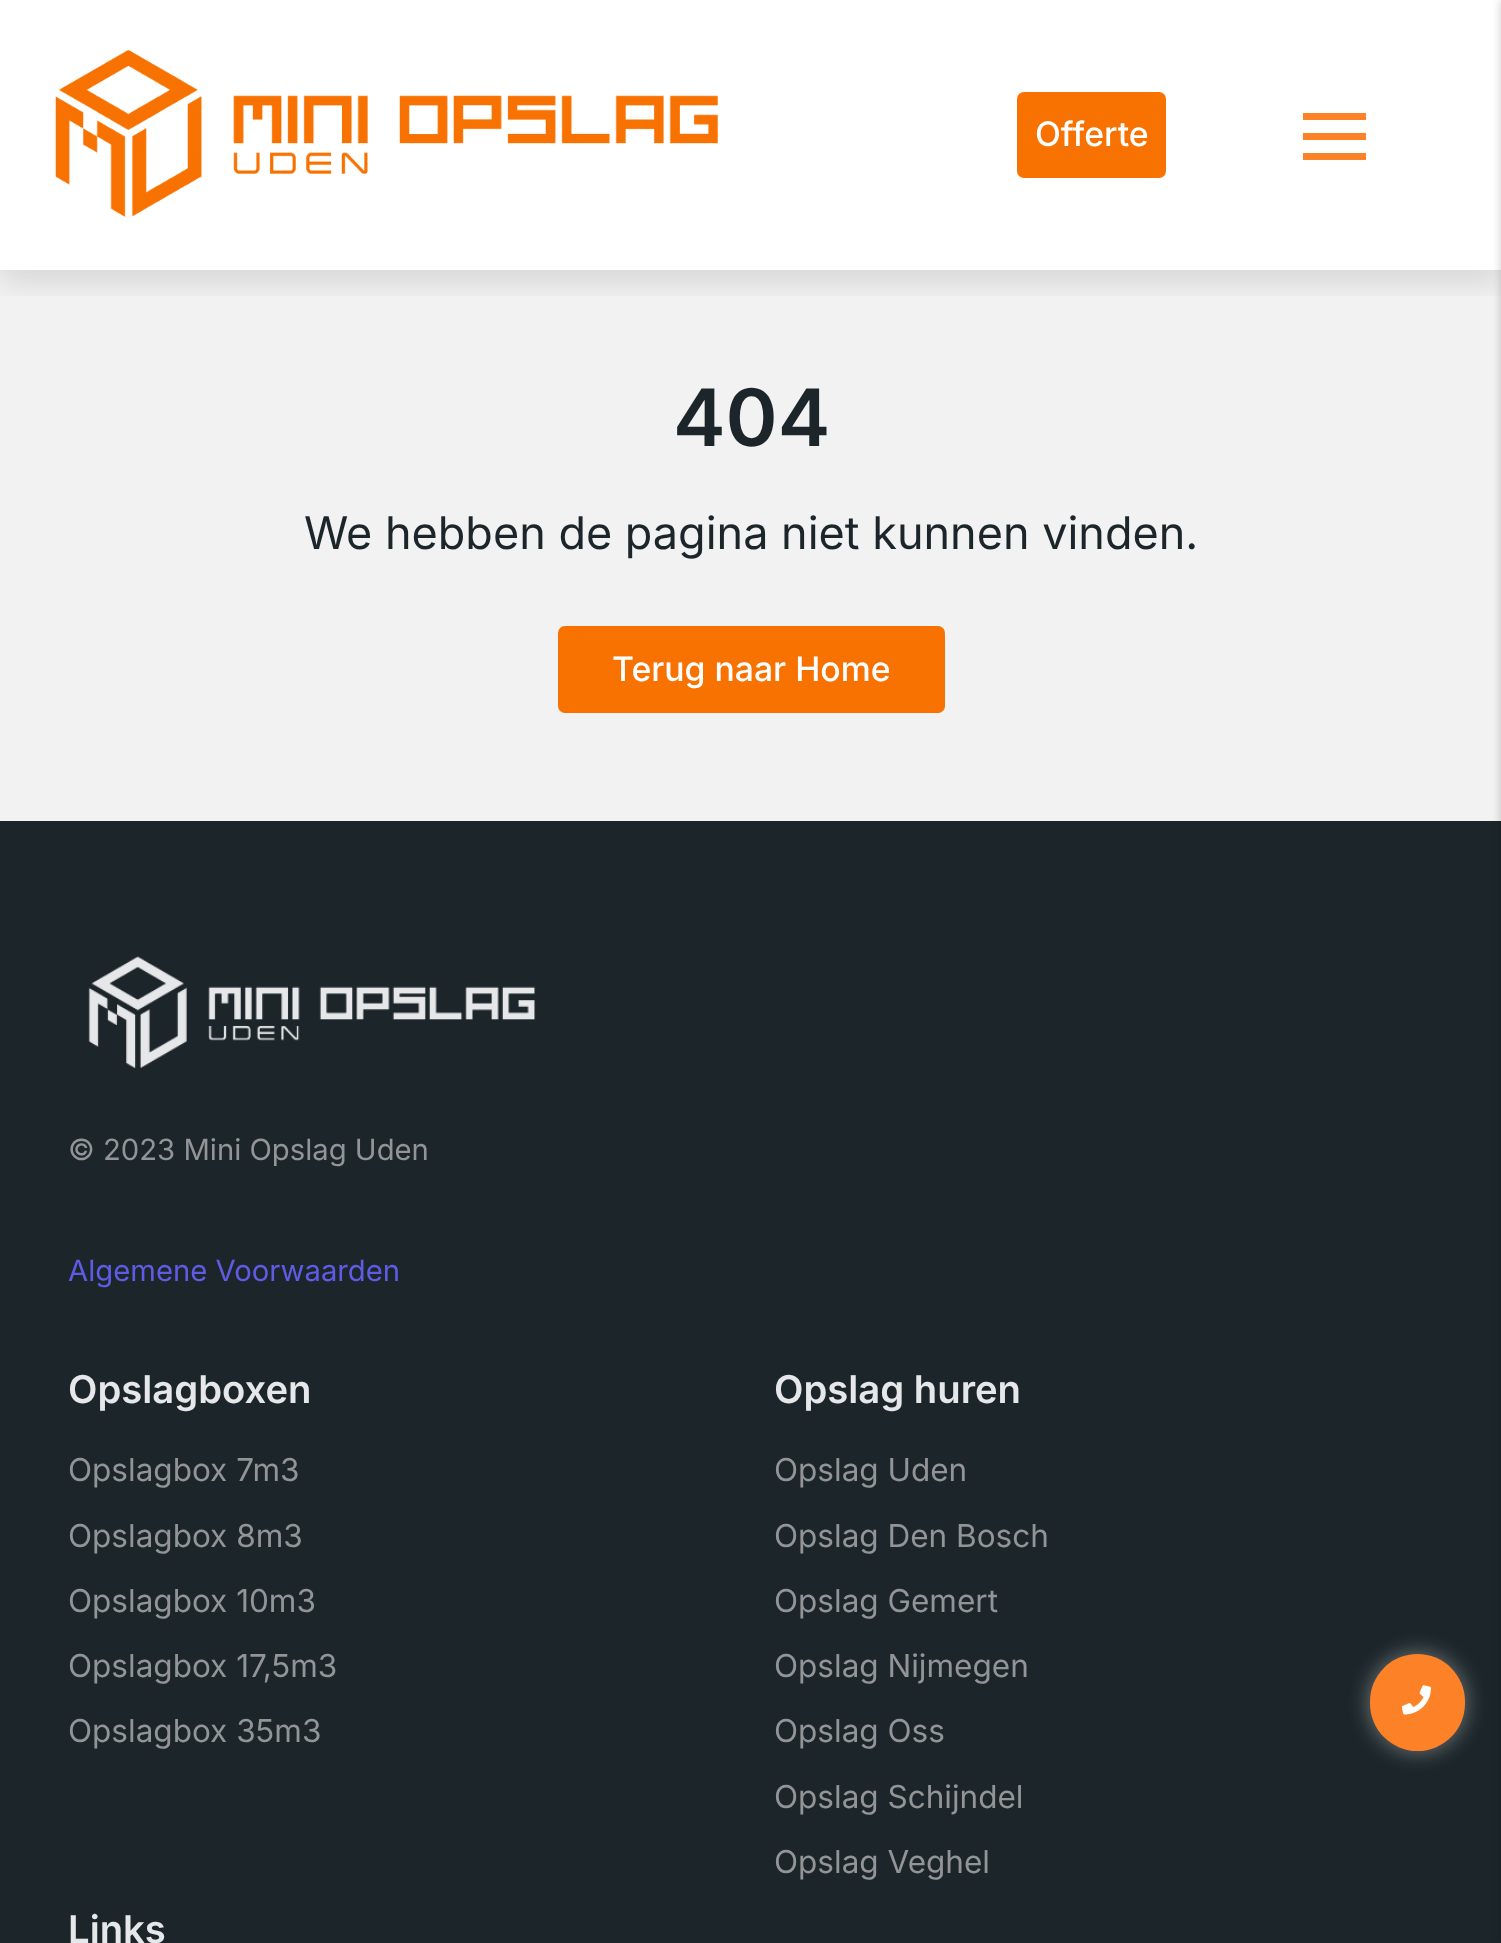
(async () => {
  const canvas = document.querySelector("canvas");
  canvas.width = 1501;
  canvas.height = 1943;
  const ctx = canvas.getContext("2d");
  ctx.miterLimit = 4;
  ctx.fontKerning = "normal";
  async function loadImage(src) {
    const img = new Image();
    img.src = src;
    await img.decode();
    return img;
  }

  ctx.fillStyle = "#ffffff";
  ctx.fillRect(0, 0, 1501, 1943);
  ctx.fillStyle = "#f2f2f2";
  ctx.fillRect(0, 270, 1501, 551);
  ctx.save();
  ctx.beginPath();
  ctx.rect(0, 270, 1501, 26);
  ctx.clip();
  ctx.fillStyle = "rgba(0, 0, 0, 0.12)";
  ctx.filter = "blur(16px)";
  ctx.beginPath();
  ctx.rect(0, 11, 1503, 270);
  ctx.fill();
  ctx.filter = "none";
  ctx.restore();
  ctx.drawImage(await loadImage("img/1.png"), 55, 49, 663, 168);
  ctx.fillStyle = "#f87202";
  ctx.beginPath();
  ctx.roundRect(1017, 92, 149, 86, 7);
  ctx.fill();
  for (const [x, y, w, h, color] of [
    [1303, 113, 63, 7, "#fd8127"],
    [1303, 133, 63, 7, "#fd8127"],
    [1303, 153, 63, 7, "#fd8127"],
    [0, 821, 1501, 1122, "#1c262a"],
  ]) {
    ctx.fillStyle = color;
    ctx.fillRect(x, y, w, h);
  }
  ctx.fillStyle = "rgba(0, 0, 0, 0.3)";
  ctx.filter = "blur(5.5px)";
  ctx.beginPath();
  ctx.rect(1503, 0, 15, 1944);
  ctx.fill();
  ctx.filter = "none";
  ctx.fillStyle = "#f87202";
  ctx.beginPath();
  ctx.roundRect(558, 626, 387, 87, 7);
  ctx.fill();
  ctx.drawImage(await loadImage("img/2.png"), 88, 956, 448, 113);
  ctx.fillStyle = "rgba(207, 207, 207, 0.5)";
  ctx.filter = "blur(11px)";
  ctx.beginPath();
  ctx.roundRect(1370, 1654, 95, 97, 47.5);
  ctx.fill();
  ctx.filter = "none";
  ctx.fillStyle = "#fd8127";
  ctx.beginPath();
  ctx.roundRect(1370, 1654, 95, 97, 47.5);
  ctx.fill();
  ctx.drawImage(await loadImage("img/3.png"), 1402, 1685, 29, 30);
  ctx.font = "500 33.75px Inter";
  ctx.fillStyle = "#ffffff";
  ctx.fillText("Offerte", 1035, 146);
  ctx.font = "600 79px Inter";
  ctx.fillStyle = "#1c262a";
  ctx.fillText("404", 673, 446);
  ctx.font = "45px Inter";
  ctx.fillText("We hebben de pagina niet kunnen vinden.", 304, 549);
  ctx.font = "500 33.75px Inter";
  ctx.fillStyle = "#ffffff";
  ctx.fillText("Terug naar Home", 612, 681);
  ctx.font = "29.25px Inter";
  ctx.fillStyle = "#929496";
  ctx.fillText("© 2023 Mini Opslag Uden", 68, 1160);
  ctx.fillStyle = "#605be5";
  ctx.fillText("Algemene Voorwaarden", 68, 1281);
  ctx.font = "600 38.25px Inter";
  ctx.fillStyle = "#e6e7e8";
  ctx.fillText("Opslagboxen", 68, 1403);
  ctx.font = "31.5px Inter";
  ctx.fillStyle = "#929496";
  for (const [text, x, y] of [
    ["Opslagbox 7m3", 68, 1481],
    ["Opslagbox 8m3", 68, 1547],
    ["Opslagbox 10m3", 68, 1612],
    ["Opslagbox 17,5m3", 68, 1677],
    ["Opslagbox 35m3", 68, 1742],
  ]) {
    ctx.fillText(text, x, y);
  }
  ctx.font = "600 38.25px Inter";
  ctx.fillStyle = "#e6e7e8";
  ctx.fillText("Opslag huren", 774, 1403);
  ctx.font = "31.5px Inter";
  ctx.fillStyle = "#929496";
  for (const [text, x, y] of [
    ["Opslag Uden", 774, 1481],
    ["Opslag Den Bosch", 774, 1547],
    ["Opslag Gemert", 774, 1612],
    ["Opslag Nijmegen", 774, 1677],
    ["Opslag Oss", 774, 1742],
    ["Opslag Schijndel", 774, 1808],
    ["Opslag Veghel", 774, 1873],
  ]) {
    ctx.fillText(text, x, y);
  }
  ctx.font = "600 38.25px Inter";
  ctx.fillStyle = "#e6e7e8";
  ctx.fillText("Links", 68, 1943);
})();
